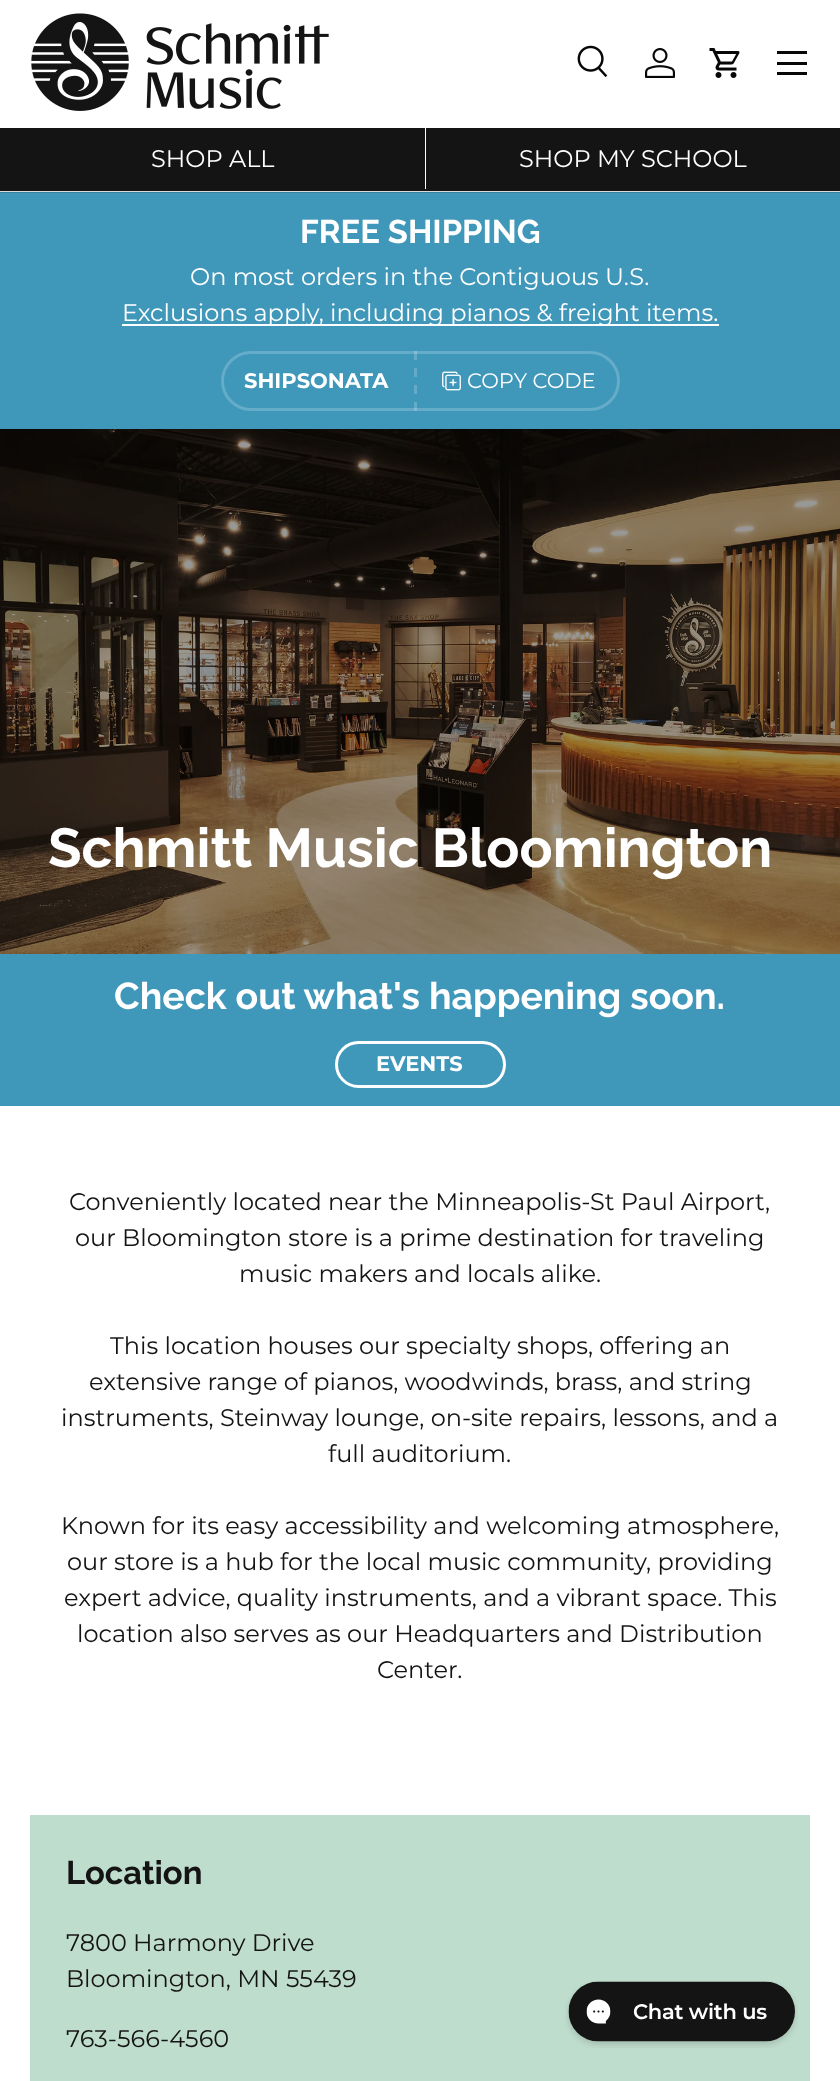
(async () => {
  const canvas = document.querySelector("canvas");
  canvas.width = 840;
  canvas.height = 2081;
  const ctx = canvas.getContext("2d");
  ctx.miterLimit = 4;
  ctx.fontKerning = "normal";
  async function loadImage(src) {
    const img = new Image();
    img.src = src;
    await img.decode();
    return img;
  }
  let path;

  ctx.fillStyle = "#ffffff";
  ctx.fillRect(0, 0, 840, 2081);
  ctx.fillStyle = "#dadada";
  ctx.fillRect(0, 191, 840, 1);
  ctx.drawImage(await loadImage("img/1.png"), 31, 13, 298, 98);
  ctx.drawImage(await loadImage("img/2.png"), 577, 45, 31, 32);
  ctx.drawImage(await loadImage("img/3.png"), 645, 48, 30, 30);
  ctx.drawImage(await loadImage("img/4.png"), 709, 48, 31, 30);
  for (const [x, y, w, h, color] of [
    [777, 51, 30, 3, "#070707"],
    [777, 72, 30, 3, "#070707"],
    [777, 62, 30, 3, "#070707"],
    [0, 128, 425, 61, "#151415"],
    [0, 189, 426, 2, "#151415"],
    [426, 128, 414, 63, "#151415"],
    [0, 193, 840, 236, "#3f97ba"],
    [0, 192, 840, 1, "#37819f"],
    [122, 324, 597, 2, "#ffffff"],
  ]) {
    ctx.fillStyle = color;
    ctx.fillRect(x, y, w, h);
  }
  ctx.beginPath();
  ctx.roundRect(222.5, 352.5, 396, 57, 28.5);
  ctx.strokeStyle = "#65acc8";
  ctx.lineWidth = 3;
  ctx.stroke();
  path = new Path2D("M415.5 351V411");
  ctx.strokeStyle = "rgba(255, 255, 255, 0.2)";
  ctx.setLineDash([9, 8]);
  ctx.stroke(path);
  ctx.drawImage(await loadImage("img/5.png"), 442, 371, 19, 20);
  ctx.drawImage(await loadImage("img/6.png"), 0, 429, 840, 525);
  ctx.fillStyle = "#3f97ba";
  ctx.fillRect(0, 954, 840, 152);
  ctx.beginPath();
  ctx.roundRect(336.5, 1042.5, 168, 44, 22);
  ctx.strokeStyle = "#ffffff";
  ctx.setLineDash([]);
  ctx.stroke();
  ctx.fillStyle = "#bfddcd";
  ctx.fillRect(30, 1815, 780, 266);
  ctx.drawImage(await loadImage("img/7.png"), 565, 1981, 233, 67);
  ctx.font = "24px Montserrat";
  ctx.fillStyle = "#ffffff";
  ctx.fillText("SHOP ALL", 151, 167);
  ctx.fillText("SHOP MY SCHOOL", 519, 167);
  ctx.font = "bold 32.75px Raleway";
  ctx.fillText("FREE SHIPPING", 300, 243);
  ctx.font = "24px Montserrat";
  ctx.fillText("On most orders in the Contiguous U.S.", 190, 285);
  ctx.fillText("Exclusions apply, including pianos & freight items.", 122, 321);
  ctx.font = "bold 21px Montserrat";
  ctx.fillText("SHIPSONATA", 244, 388);
  ctx.font = "21px Montserrat";
  ctx.fillText("COPY CODE", 467, 388);
  ctx.font = "bold 54.75px Raleway";
  ctx.fillText("Schmitt Music Bloomington", 48, 867);
  ctx.font = "bold 37.4px Raleway";
  ctx.fillText("Check out what's happening soon.", 114, 1009);
  ctx.font = "bold 21px Montserrat";
  ctx.fillText("EVENTS", 376, 1071);
  ctx.font = "24px Montserrat";
  ctx.fillStyle = "#151415";
  for (const [text, x, y] of [
    ["Conveniently located near the Minneapolis-St Paul Airport,", 69, 1210],
    ["our Bloomington store is a prime destination for traveling", 75, 1246],
    ["music makers and locals alike.", 239, 1282],
    ["This location houses our specialty shops, offering an", 110, 1354],
    ["extensive range of pianos, woodwinds, brass, and string", 89, 1390],
    ["instruments, Steinway lounge, on-site repairs, lessons, and a", 61, 1426],
    ["full auditorium.", 328, 1462],
    ["Known for its easy accessibility and welcoming atmosphere,", 61, 1534],
    ["our store is a hub for the local music community, providing", 67, 1570],
    ["expert advice, quality instruments, and a vibrant space. This", 64, 1606],
    ["location also serves as our Headquarters and Distribution", 77, 1642],
    ["Center.", 377, 1678],
  ]) {
    ctx.fillText(text, x, y);
  }
  ctx.font = "bold 32.75px Raleway";
  ctx.fillText("Location", 66, 1884);
  ctx.font = "24px Montserrat";
  for (const [text, x, y] of [
    ["7800 Harmony Drive", 66, 1951],
    ["Bloomington, MN 55439", 66, 1987],
    ["763-566-4560", 66, 2047],
  ]) {
    ctx.fillText(text, x, y);
  }
})();
